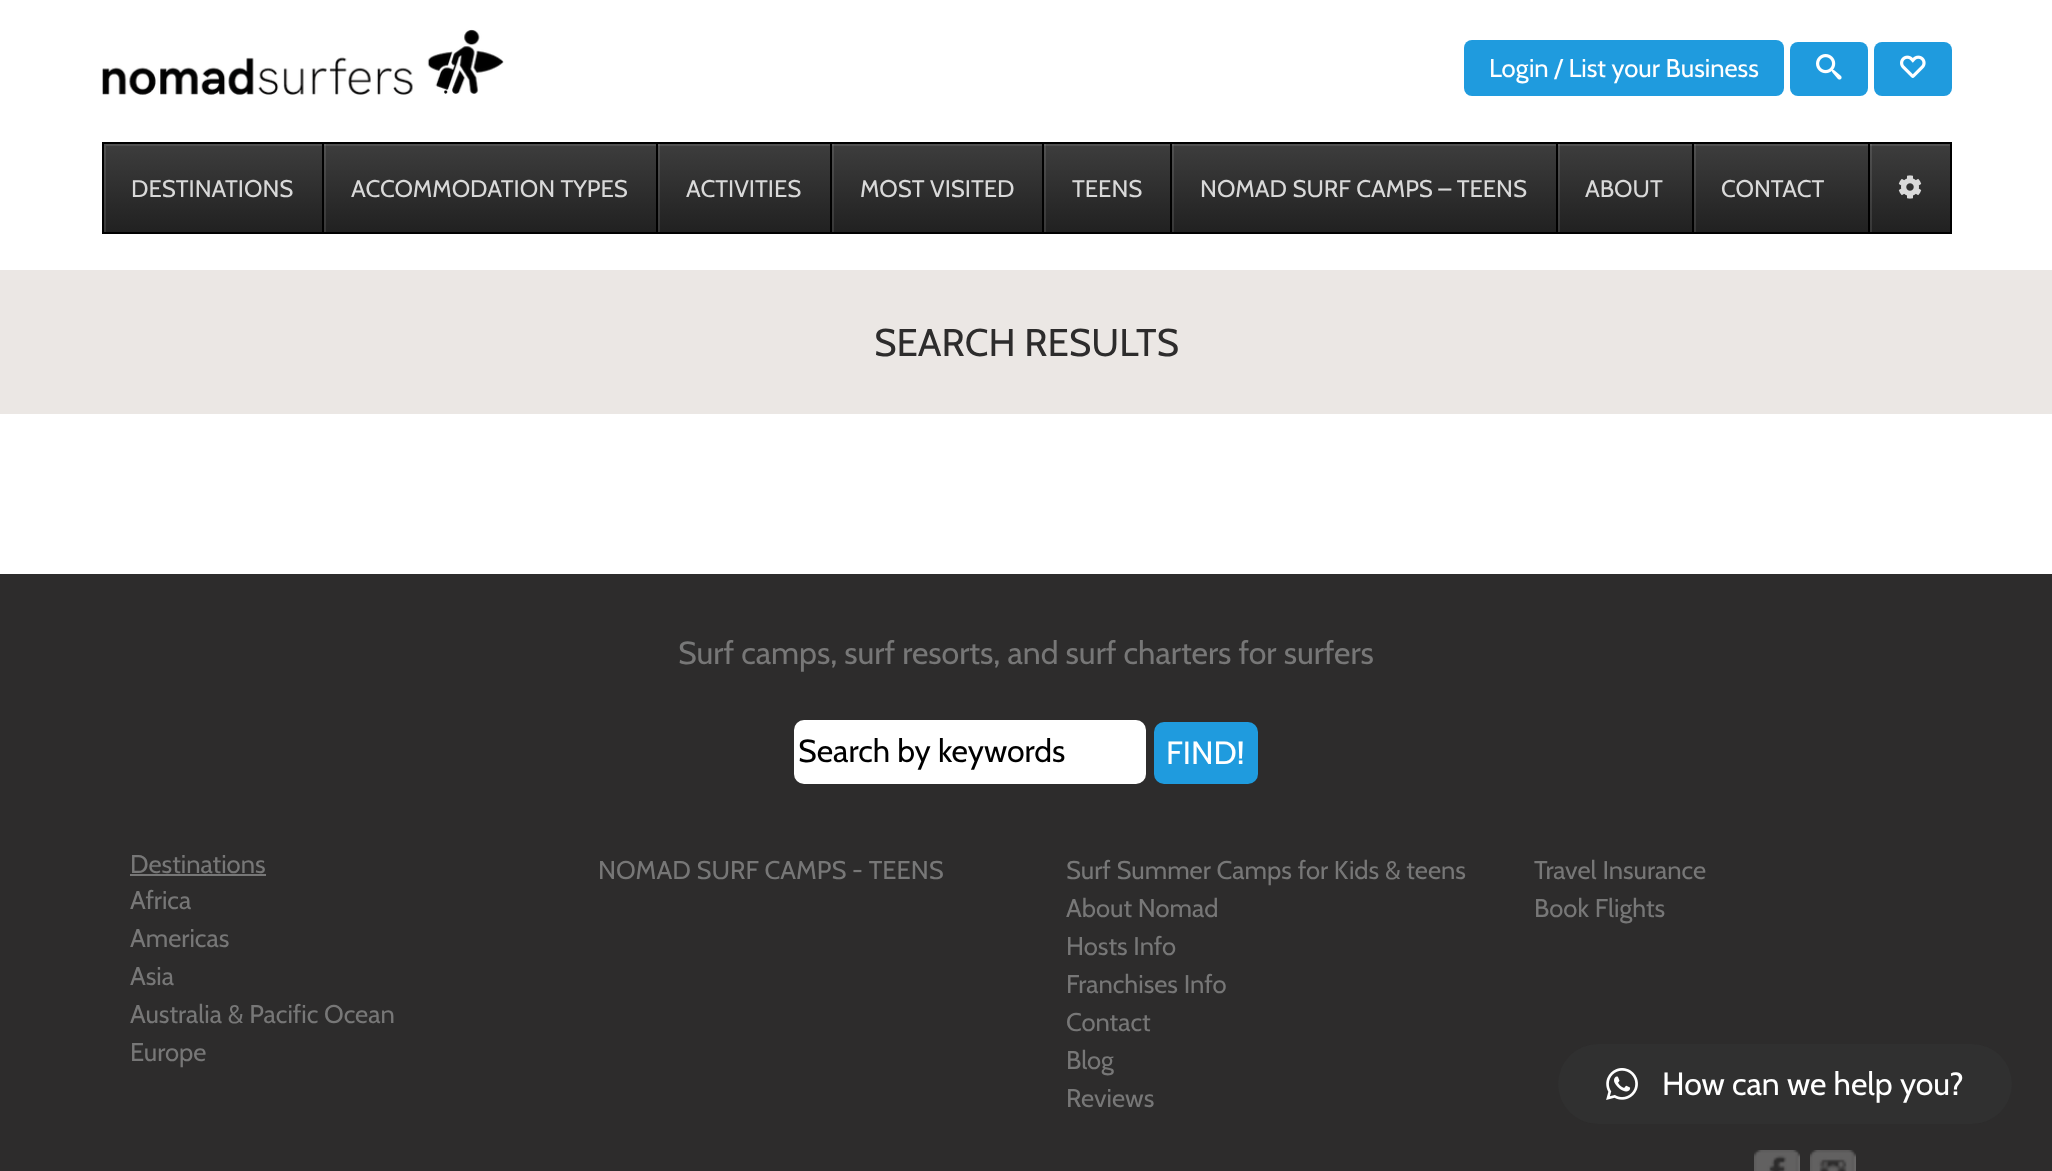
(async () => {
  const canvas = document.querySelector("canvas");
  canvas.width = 2052;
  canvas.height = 1171;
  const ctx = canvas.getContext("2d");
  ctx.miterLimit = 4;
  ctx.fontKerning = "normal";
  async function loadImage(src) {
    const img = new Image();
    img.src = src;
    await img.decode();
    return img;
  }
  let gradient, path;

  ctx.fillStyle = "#ffffff";
  ctx.fillRect(0, 0, 2052, 1171);
  ctx.drawImage(await loadImage("img/1.png"), 102, 29, 402, 66);
  ctx.fillStyle = "#1f9bde";
  ctx.beginPath();
  ctx.roundRect(1464, 40, 320, 56, 8);
  ctx.fill();
  ctx.beginPath();
  ctx.roundRect(1790, 42, 78, 54, 8);
  ctx.fill();
  ctx.beginPath();
  ctx.roundRect(1874, 42, 78, 54, 8);
  ctx.fill();
  ctx.drawImage(await loadImage("img/2.png"), 1816, 54, 26, 26);
  ctx.drawImage(await loadImage("img/3.png"), 1900, 55, 26, 23);
  gradient = ctx.createLinearGradient(1027, 144, 1027, 232);
  gradient.addColorStop(0, "#3d3d3d");
  gradient.addColorStop(1, "#212121");
  ctx.fillStyle = gradient;
  ctx.fillRect(104, 144, 1846, 88);
  ctx.save();
  ctx.beginPath();
  ctx.rect(104, 144, 1846, 88);
  ctx.clip();
  ctx.fillStyle = "rgba(255, 255, 255, 0.1)";
  path = new Path2D("M-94-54H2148V430H-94ZM106 146H1952V234H106Z");
  ctx.fill(path, "evenodd");
  ctx.restore();
  ctx.strokeStyle = "#000000";
  ctx.lineWidth = 2;
  ctx.strokeRect(103, 143, 1848, 90);
  for (const [x, y, w, h, color] of [
    [324, 144, 2, 88, "rgba(255, 255, 255, 0.1)"],
    [322, 144, 2, 88, "#000000"],
    [658, 144, 2, 88, "rgba(255, 255, 255, 0.1)"],
    [656, 144, 2, 88, "#000000"],
    [832, 144, 2, 88, "rgba(255, 255, 255, 0.1)"],
    [830, 144, 2, 88, "#000000"],
    [1044, 144, 2, 88, "rgba(255, 255, 255, 0.1)"],
    [1042, 144, 2, 88, "#000000"],
    [1172, 144, 2, 88, "rgba(255, 255, 255, 0.1)"],
    [1170, 144, 2, 88, "#000000"],
    [1558, 144, 2, 88, "rgba(255, 255, 255, 0.1)"],
    [1556, 144, 2, 88, "#000000"],
    [1694, 144, 2, 88, "rgba(255, 255, 255, 0.1)"],
    [1692, 144, 2, 88, "#000000"],
    [1870, 144, 2, 88, "rgba(255, 255, 255, 0.1)"],
    [1868, 144, 2, 88, "#000000"],
  ]) {
    ctx.fillStyle = color;
    ctx.fillRect(x, y, w, h);
  }
  ctx.drawImage(await loadImage("img/4.png"), 1898, 175, 24, 24);
  ctx.fillStyle = "#ebe7e4";
  ctx.fillRect(0, 270, 2052, 144);
  ctx.fillStyle = "#2d2c2c";
  ctx.fillRect(0, 574, 2052, 597);
  ctx.fillStyle = "#ffffff";
  ctx.beginPath();
  ctx.roundRect(794, 720, 352, 64, 10);
  ctx.fill();
  ctx.fillStyle = "#1f9bde";
  ctx.beginPath();
  ctx.roundRect(1154, 722, 104, 62, 10);
  ctx.fill();
  ctx.fillStyle = "#777777";
  ctx.fillRect(130, 874, 136, 2);
  ctx.drawImage(await loadImage("img/5.png"), 1754, 1150, 46, 21);
  ctx.drawImage(await loadImage("img/6.png"), 1810, 1150, 46, 21);
  ctx.fillStyle = "#303030";
  ctx.beginPath();
  ctx.roundRect(1558, 1044, 454, 80, 40);
  ctx.fill();
  ctx.drawImage(await loadImage("img/7.png"), 1606, 1068, 32, 32);
  ctx.font = "25.6px Cabin";
  ctx.fillStyle = "#ffffff";
  ctx.fillText("Login / List your Business", 1489, 77);
  ctx.font = "24px Cabin";
  ctx.fillStyle = "#d9d9d9";
  for (const [text, x, y] of [
    ["DESTINATIONS", 131, 197],
    ["ACCOMMODATION TYPES", 351, 197],
    ["ACTIVITIES", 686, 197],
    ["MOST VISITED", 860, 197],
    ["TEENS", 1072, 197],
    ["NOMAD SURF CAMPS – TEENS", 1200, 197],
    ["ABOUT", 1585, 197],
    ["CONTACT", 1721, 197],
  ]) {
    ctx.fillText(text, x, y);
  }
  ctx.font = "38.5px Cabin";
  ctx.fillStyle = "#2d2c2c";
  ctx.fillText("SEARCH RESULTS", 874, 356);
  ctx.font = "32px Cabin";
  ctx.fillStyle = "#777777";
  ctx.fillText("Surf camps, surf resorts, and surf charters for surfers", 678, 664);
  ctx.fillStyle = "#000000";
  ctx.fillText("Search by keywords", 798, 762);
  ctx.fillStyle = "#ffffff";
  ctx.fillText("FIND!", 1166, 764);
  ctx.font = "25.6px Cabin";
  ctx.fillStyle = "#777777";
  for (const [text, x, y] of [
    ["Destinations", 130, 873],
    ["Africa", 130, 909],
    ["Americas", 130, 947],
    ["Asia", 130, 985],
    ["Australia & Pacific Ocean", 130, 1023],
    ["Europe", 130, 1061],
    ["NOMAD SURF CAMPS - TEENS", 598, 879],
    ["Surf Summer Camps for Kids & teens", 1066, 879],
    ["About Nomad", 1066, 917],
    ["Hosts Info", 1066, 955],
    ["Franchises Info", 1066, 993],
    ["Contact", 1066, 1031],
    ["Blog", 1066, 1069],
    ["Reviews", 1066, 1107],
    ["Travel Insurance", 1534, 879],
    ["Book Flights", 1534, 917],
  ]) {
    ctx.fillText(text, x, y);
  }
  ctx.font = "32px Cabin";
  ctx.fillStyle = "#ffffff";
  ctx.fillText("How can we help you?", 1662, 1095);
})();
